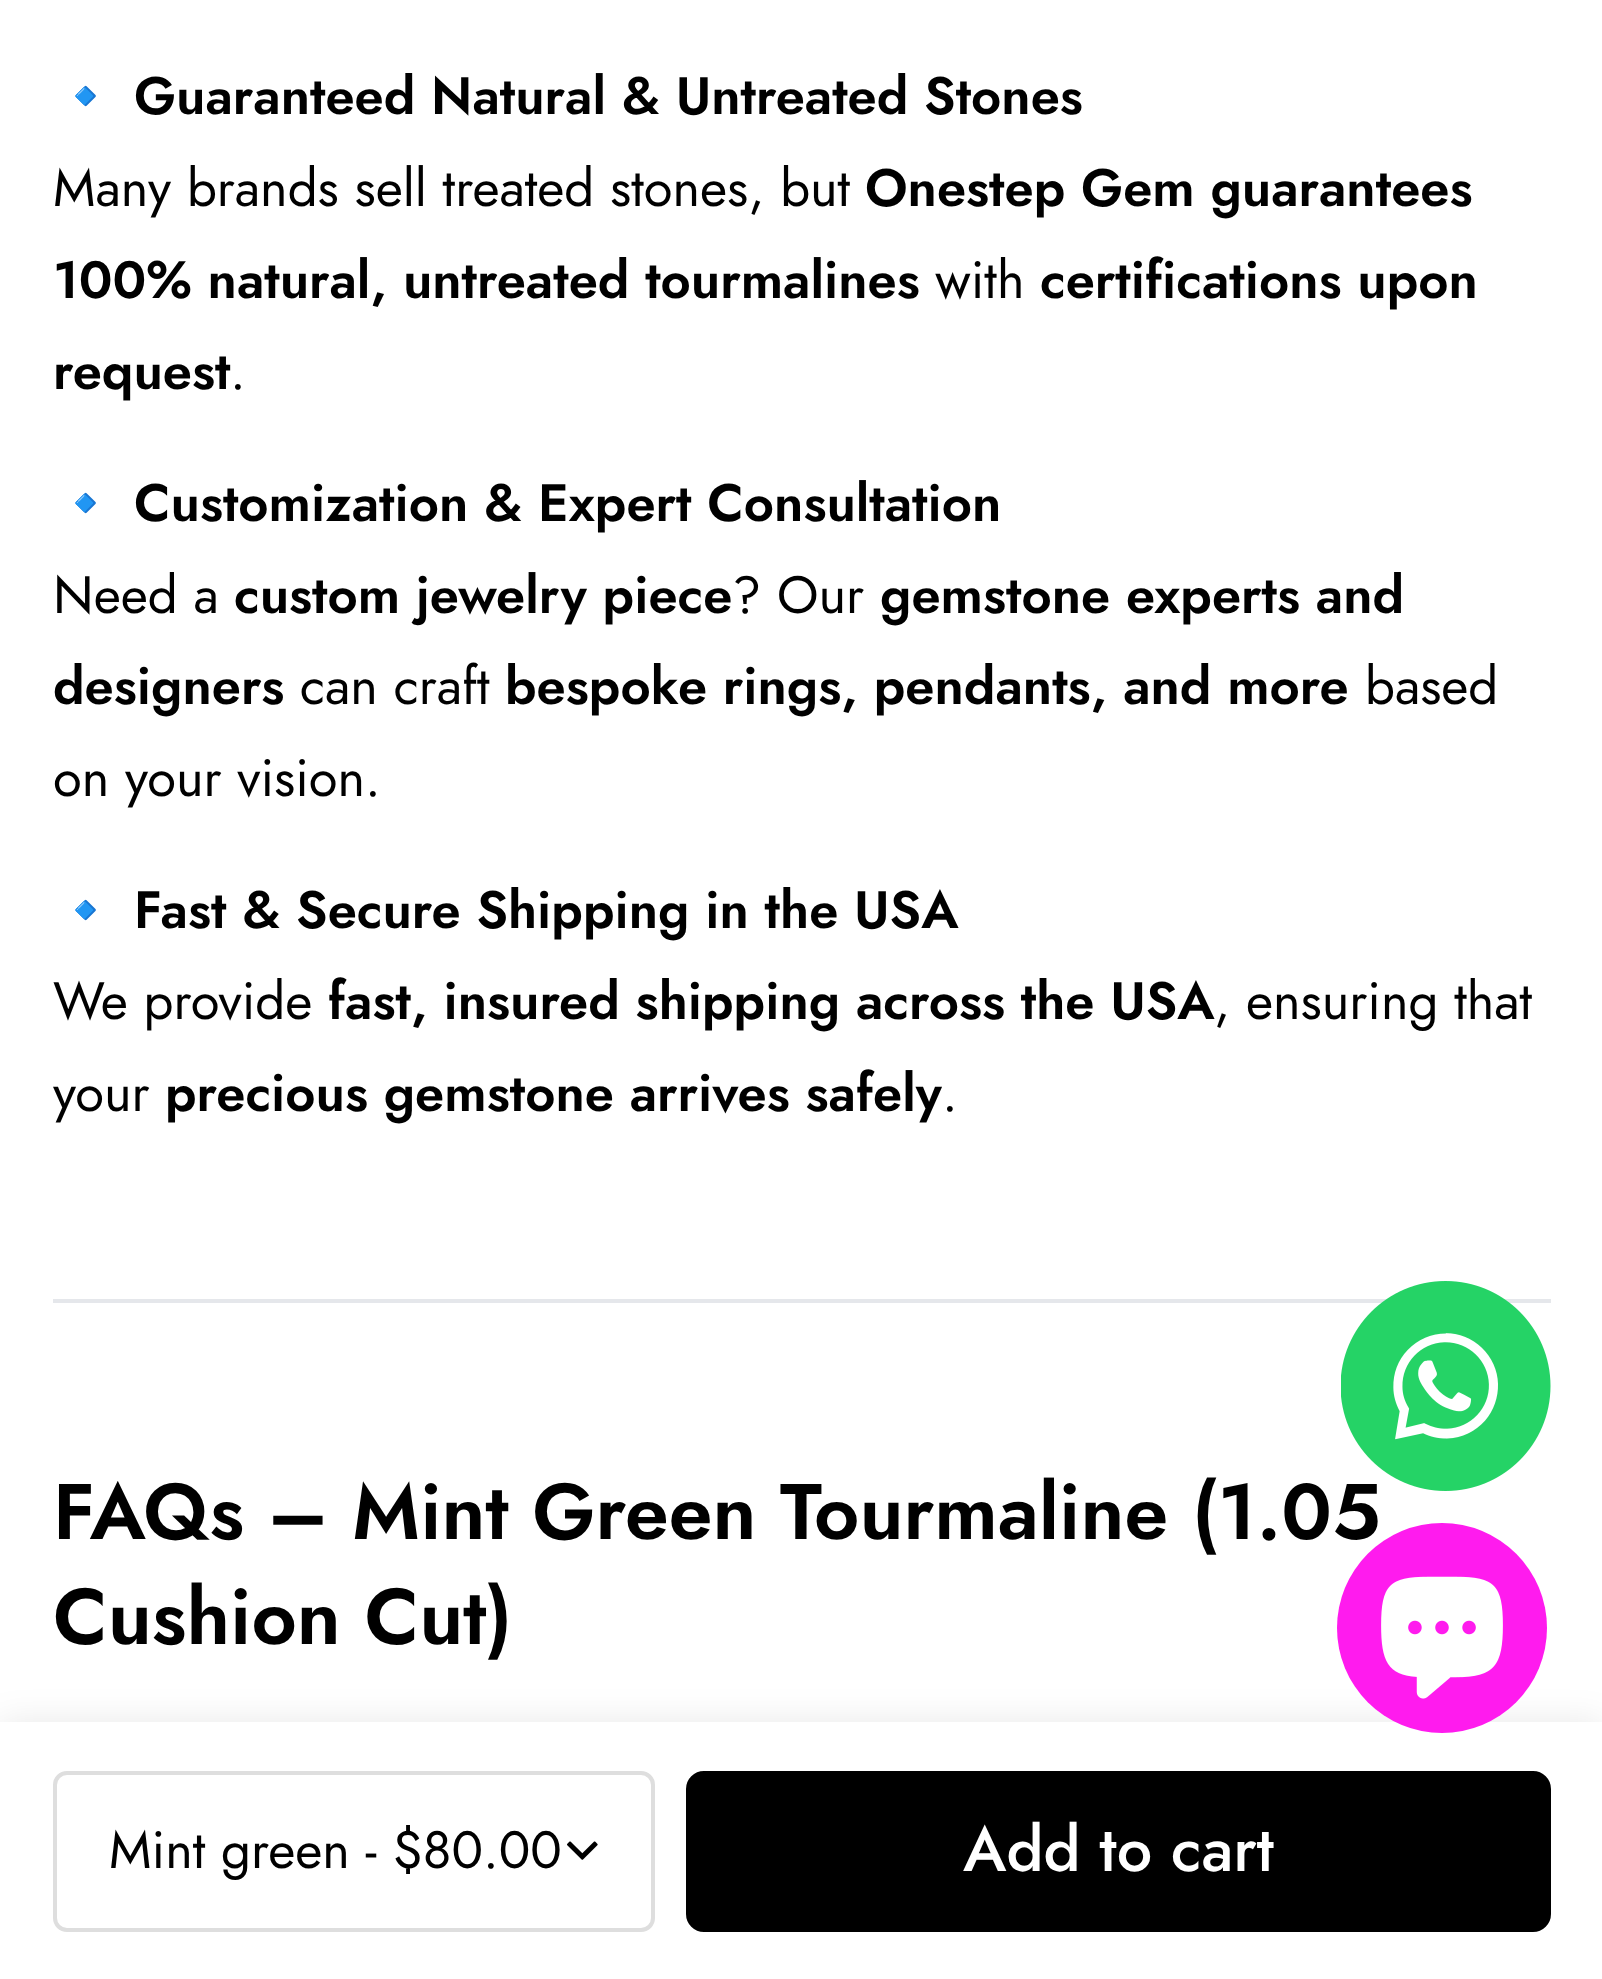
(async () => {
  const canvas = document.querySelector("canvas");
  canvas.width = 1602;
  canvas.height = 1979;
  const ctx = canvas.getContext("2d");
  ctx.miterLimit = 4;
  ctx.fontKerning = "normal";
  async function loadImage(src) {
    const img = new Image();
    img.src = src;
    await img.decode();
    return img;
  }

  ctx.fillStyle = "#ffffff";
  ctx.fillRect(0, 0, 1602, 1979);
  ctx.fillStyle = "#e5e7eb";
  ctx.fillRect(53, 1299, 1498, 4);
  ctx.fillStyle = "rgba(0, 0, 0, 0.09)";
  ctx.filter = "blur(17.5px)";
  ctx.beginPath();
  ctx.rect(0, 1722, 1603, 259);
  ctx.fill();
  ctx.filter = "none";
  ctx.fillStyle = "#ffffff";
  ctx.fillRect(0, 1722, 1602, 257);
  ctx.drawImage(await loadImage("img/1.png"), 567, 1841, 31, 19);
  ctx.beginPath();
  ctx.roundRect(55, 1773, 598, 157, 12);
  ctx.strokeStyle = "#dedede";
  ctx.lineWidth = 4;
  ctx.stroke();
  ctx.fillStyle = "#000000";
  ctx.beginPath();
  ctx.roundRect(688, 1773, 861, 157, 16);
  ctx.fill();
  ctx.strokeStyle = "#000000";
  ctx.stroke();
  ctx.font = "bold 52.5px Noto Color Emoji";
  ctx.fillText("🔹", 53, 114);
  ctx.font = "600 52.5px Jost";
  ctx.fillText("Guaranteed Natural & Untreated Stones", 134, 114);
  ctx.font = "52.5px Jost";
  ctx.fillText("Many brands sell treated stones, but", 53, 206);
  ctx.font = "600 52.5px Jost";
  ctx.fillText("Onestep Gem guarantees", 865, 206);
  ctx.fillText("100% natural, untreated tourmalines", 53, 298);
  ctx.font = "52.5px Jost";
  ctx.fillText("with", 935, 298);
  ctx.font = "600 52.5px Jost";
  ctx.fillText("certifications upon", 1040, 298);
  ctx.fillText("request", 53, 389);
  ctx.font = "52.5px Jost";
  ctx.fillText(".", 230, 389);
  ctx.font = "bold 52.5px Noto Color Emoji";
  ctx.fillText("🔹", 53, 521);
  ctx.font = "600 52.5px Jost";
  ctx.fillText("Customization & Expert Consultation", 134, 521);
  ctx.font = "52.5px Jost";
  ctx.fillText("Need a", 53, 613);
  ctx.font = "600 52.5px Jost";
  ctx.fillText("custom jewelry piece", 234, 613);
  ctx.font = "52.5px Jost";
  ctx.fillText("? Our", 732, 613);
  ctx.font = "600 52.5px Jost";
  ctx.fillText("gemstone experts and", 880, 613);
  ctx.fillText("designers", 53, 704);
  ctx.font = "52.5px Jost";
  ctx.fillText("can craft", 300, 704);
  ctx.font = "600 52.5px Jost";
  ctx.fillText("bespoke rings, pendants, and more", 505, 704);
  ctx.font = "52.5px Jost";
  ctx.fillText("based", 1365, 704);
  ctx.fillText("on your vision.", 53, 796);
  ctx.font = "bold 52.5px Noto Color Emoji";
  ctx.fillText("🔹", 53, 928);
  ctx.font = "600 52.5px Jost";
  ctx.fillText("Fast & Secure Shipping in the USA", 134, 928);
  ctx.font = "52.5px Jost";
  ctx.fillText("We provide", 53, 1019);
  ctx.font = "600 52.5px Jost";
  ctx.fillText("fast, insured shipping across the USA", 328, 1019);
  ctx.font = "52.5px Jost";
  ctx.fillText(", ensuring that", 1214, 1019);
  ctx.fillText("your", 53, 1111);
  ctx.font = "600 52.5px Jost";
  ctx.fillText("precious gemstone arrives safely", 165, 1111);
  ctx.font = "52.5px Jost";
  ctx.fillText(".", 942, 1111);
  ctx.font = "600 78.75px Jost";
  ctx.fillText("FAQs – Mint Green Tourmaline (1.05", 53, 1539);
  ctx.fillText("Cushion Cut)", 53, 1644);
  ctx.font = "52.5px Jost";
  ctx.fillText("Mint green - $80.00", 109, 1868);
  ctx.font = "500 63px Jost";
  ctx.fillStyle = "#ffffff";
  ctx.fillText("Add to cart", 963, 1871);
  ctx.drawImage(await loadImage("img/2.png"), 1341, 1281, 210, 210);
  ctx.fillStyle = "#ff1bee";
  ctx.beginPath();
  ctx.arc(1442, 1628, 105, 0, Math.PI * 2);
  ctx.fill();
  ctx.drawImage(await loadImage("img/3.png"), 1381, 1576, 122, 123);
})();
